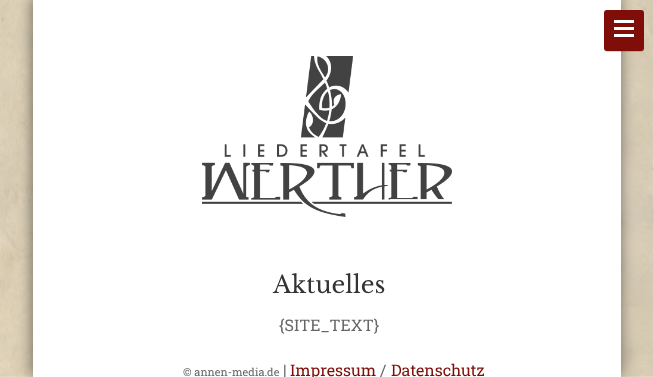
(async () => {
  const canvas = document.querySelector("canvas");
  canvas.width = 654;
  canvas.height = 377;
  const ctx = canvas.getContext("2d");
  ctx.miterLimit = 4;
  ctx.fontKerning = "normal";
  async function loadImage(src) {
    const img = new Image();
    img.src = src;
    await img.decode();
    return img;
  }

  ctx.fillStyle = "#ffffff";
  ctx.fillRect(0, 0, 654, 377);
  ctx.drawImage(await loadImage("img/1.png"), 0, 0, 654, 377);
  ctx.fillStyle = "rgba(0, 0, 0, 0.44)";
  ctx.filter = "blur(6.5px)";
  ctx.beginPath();
  ctx.rect(31, -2, 590, 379);
  ctx.fill();
  ctx.filter = "none";
  ctx.fillStyle = "#ffffff";
  ctx.fillRect(33, 0, 588, 377);
  ctx.fillStyle = "rgba(0, 0, 0, 0.15)";
  ctx.filter = "blur(0.5px)";
  ctx.beginPath();
  ctx.roundRect(604, 11, 40, 41, 3);
  ctx.fill();
  ctx.filter = "none";
  ctx.fillStyle = "#7e0e07";
  ctx.beginPath();
  ctx.roundRect(604, 10, 40, 41, 3);
  ctx.fill();
  for (const [x, y, w, h, color] of [
    [614, 20, 20, 3, "#ffffff"],
    [614, 27, 20, 3, "#ffffff"],
    [614, 34, 20, 3, "#ffffff"],
  ]) {
    ctx.fillStyle = color;
    ctx.fillRect(x, y, w, h);
  }
  ctx.drawImage(await loadImage("img/2.png"), 202, 56, 250, 161);
  ctx.font = "24px Libre Baskerville";
  ctx.fillStyle = "#333333";
  ctx.fillText("Aktuelles", 273, 293);
  ctx.font = "16px Roboto Slab";
  ctx.fillStyle = "#666666";
  ctx.fillText("{SITE_TEXT}", 279, 331);
  ctx.font = "11px Roboto Slab";
  ctx.fillText("© annen-media.de", 183, 376);
  ctx.font = "16px Roboto Slab";
  ctx.fillText("|", 283, 376);
  ctx.fillStyle = "#7e0e07";
  ctx.fillText("Impressum", 290, 376);
  ctx.fillStyle = "#666666";
  ctx.fillText("/", 380, 376);
  ctx.fillStyle = "#7e0e07";
  ctx.fillText("Datenschutz", 391, 376);
})();
